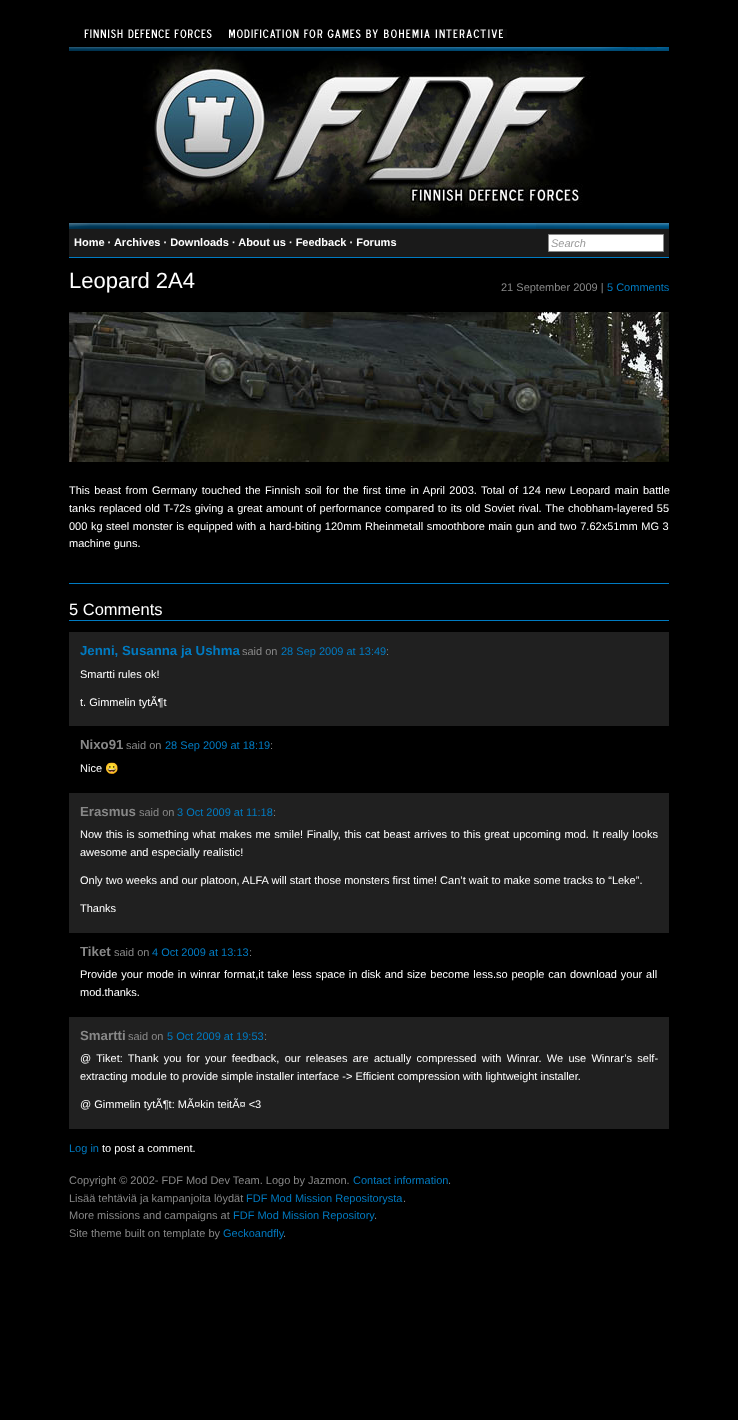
(async () => {
  const canvas = document.querySelector("canvas");
  canvas.width = 738;
  canvas.height = 1420;
  const ctx = canvas.getContext("2d");
  ctx.miterLimit = 4;
  ctx.fontKerning = "normal";
  async function loadImage(src) {
    const img = new Image();
    img.src = src;
    await img.decode();
    return img;
  }

  ctx.fillStyle = "#000000";
  ctx.fillRect(0, 0, 738, 1420);
  ctx.drawImage(await loadImage("img/1.png"), 69, 29, 600, 200);
  ctx.fillStyle = "#1a1a1a";
  ctx.fillRect(69, 229, 600, 28);
  ctx.fillStyle = "#007bc2";
  ctx.fillRect(69, 257, 600, 1);
  ctx.fillStyle = "#ffffff";
  ctx.beginPath();
  ctx.rect(548.5, 234.5, 115, 17);
  ctx.fill();
  ctx.strokeStyle = "#888888";
  ctx.stroke();
  ctx.drawImage(await loadImage("img/2.png"), 69, 312, 600, 150);
  for (const [x, y, w, h, color] of [
    [69, 583, 600, 1, "#007bc2"],
    [69, 620, 600, 1, "#007bc2"],
    [69, 632, 600, 94, "#202020"],
    [69, 793, 600, 140, "#202020"],
    [69, 1017, 600, 112, "#202020"],
  ]) {
    ctx.fillStyle = color;
    ctx.fillRect(x, y, w, h);
  }
  ctx.font = "bold 11px Liberation Sans";
  ctx.fillStyle = "#ffffff";
  ctx.fillText("Home · Archives · Downloads · About us · Feedback · Forums", 74, 246);
  ctx.font = "italic 11px Liberation Sans";
  ctx.fillStyle = "#999999";
  ctx.fillText("Search", 551, 247);
  ctx.font = "22px Liberation Sans";
  ctx.fillStyle = "#ffffff";
  ctx.fillText("Leopard 2A4", 69, 288);
  ctx.font = "11px Liberation Sans";
  ctx.fillStyle = "#888888";
  ctx.fillText("21 September 2009 |", 501, 291);
  ctx.fillStyle = "#007bc2";
  ctx.fillText("5 Comments", 607, 291);
  ctx.wordSpacing = "1.4px";
  ctx.fillStyle = "#ffffff";
  ctx.fillText("This beast from Germany touched the Finnish soil for the first time in April 2003. Total of 124 new Leopard main battle", 69, 494);
  ctx.wordSpacing = "0.75px";
  ctx.fillText("tanks replaced old T-72s giving a great amount of performance compared to its old Soviet rival. The chobham-layered 55", 69, 512);
  ctx.wordSpacing = "0.5px";
  ctx.fillText("000 kg steel monster is equipped with a hard-biting 120mm Rheinmetall smoothbore main gun and two 7.62x51mm MG 3", 69, 530);
  ctx.wordSpacing = "0px";
  ctx.fillText("machine guns.", 69, 547);
  ctx.font = "16.5px Liberation Sans";
  ctx.fillText("5 Comments", 69, 615);
  ctx.font = "bold 13.25px Liberation Sans";
  ctx.fillStyle = "#007bc2";
  ctx.fillText("Jenni, Susanna ja Ushma", 80, 655);
  ctx.font = "11px Liberation Sans";
  ctx.fillStyle = "#888888";
  ctx.fillText("said on", 242, 655);
  ctx.fillStyle = "#007bc2";
  ctx.fillText("28 Sep 2009 at 13:49", 281, 655);
  ctx.fillStyle = "#888888";
  ctx.fillText(":", 386, 655);
  ctx.fillStyle = "#ffffff";
  ctx.fillText("Smartti rules ok!", 80, 678);
  ctx.fillText("t. Gimmelin tytÃ¶t", 80, 706);
  ctx.font = "bold 13.25px Liberation Sans";
  ctx.fillStyle = "#888888";
  ctx.fillText("Nixo91", 80, 749);
  ctx.font = "11px Liberation Sans";
  ctx.fillText("said on", 126, 749);
  ctx.fillStyle = "#007bc2";
  ctx.fillText("28 Sep 2009 at 18:19", 165, 749);
  ctx.fillStyle = "#888888";
  ctx.fillText(":", 270, 749);
  ctx.fillStyle = "#ffffff";
  ctx.fillText("Nice", 80, 772);
  ctx.font = "11px Noto Color Emoji";
  ctx.fillText("😀", 105, 772);
  ctx.font = "bold 13.25px Liberation Sans";
  ctx.fillStyle = "#888888";
  ctx.fillText("Erasmus", 80, 816);
  ctx.font = "11px Liberation Sans";
  ctx.fillText("said on", 139, 816);
  ctx.fillStyle = "#007bc2";
  ctx.fillText("3 Oct 2009 at 11:18", 177, 816);
  ctx.fillStyle = "#888888";
  ctx.fillText(":", 273, 816);
  ctx.wordSpacing = "0.6px";
  ctx.fillStyle = "#ffffff";
  ctx.fillText("Now this is something what makes me smile! Finally, this cat beast arrives to this great upcoming mod. It really looks", 80, 838);
  ctx.wordSpacing = "0px";
  for (const [text, x, y] of [
    ["awesome and especially realistic!", 80, 856],
    ["Only two weeks and our platoon, ALFA will start those monsters first time! Can’t wait to make some tracks to “Leke”.", 80, 884],
    ["Thanks", 80, 912],
  ]) {
    ctx.fillText(text, x, y);
  }
  ctx.font = "bold 13.25px Liberation Sans";
  ctx.fillStyle = "#888888";
  ctx.fillText("Tiket", 80, 956);
  ctx.font = "11px Liberation Sans";
  ctx.fillText("said on", 114, 956);
  ctx.fillStyle = "#007bc2";
  ctx.fillText("4 Oct 2009 at 13:13", 152, 956);
  ctx.fillStyle = "#888888";
  ctx.fillText(":", 249, 956);
  ctx.wordSpacing = "0.8px";
  ctx.fillStyle = "#ffffff";
  ctx.fillText("Provide your mode in winrar format,it take less space in disk and size become less.so people can download your all", 80, 978);
  ctx.wordSpacing = "0px";
  ctx.fillText("mod.thanks.", 80, 996);
  ctx.font = "bold 13.25px Liberation Sans";
  ctx.fillStyle = "#888888";
  ctx.fillText("Smartti", 80, 1040);
  ctx.font = "11px Liberation Sans";
  ctx.fillText("said on", 128, 1040);
  ctx.fillStyle = "#007bc2";
  ctx.fillText("5 Oct 2009 at 19:53", 167, 1040);
  ctx.fillStyle = "#888888";
  ctx.fillText(":", 264, 1040);
  ctx.wordSpacing = "2.25px";
  ctx.fillStyle = "#ffffff";
  ctx.fillText("@ Tiket: Thank you for your feedback, our releases are actually compressed with Winrar. We use Winrar’s self-", 80, 1062);
  ctx.wordSpacing = "0px";
  ctx.fillText("extracting module to provide simple installer interface -> Efficient compression with lightweight installer.", 80, 1080);
  ctx.fillText("@ Gimmelin tytÃ¶t: MÃ¤kin teitÃ¤ <3", 80, 1108);
  ctx.fillStyle = "#007bc2";
  ctx.fillText("Log in", 69, 1152);
  ctx.fillStyle = "#ffffff";
  ctx.fillText("to post a comment.", 102, 1152);
  ctx.fillStyle = "#888888";
  ctx.fillText("Copyright © 2002- FDF Mod Dev Team. Logo by Jazmon.", 69, 1184);
  ctx.fillStyle = "#007bc2";
  ctx.fillText("Contact information", 353, 1184);
  ctx.fillStyle = "#888888";
  ctx.fillText(".", 448, 1184);
  ctx.fillText("Lisää tehtäviä ja kampanjoita löydät", 69, 1202);
  ctx.fillStyle = "#007bc2";
  ctx.fillText("FDF Mod Mission Repositorysta", 246, 1202);
  ctx.fillStyle = "#888888";
  ctx.fillText(".", 403, 1202);
  ctx.fillText("More missions and campaigns at", 69, 1219);
  ctx.fillStyle = "#007bc2";
  ctx.fillText("FDF Mod Mission Repository", 233, 1219);
  ctx.fillStyle = "#888888";
  ctx.fillText(".", 374, 1219);
  ctx.fillText("Site theme built on template by", 69, 1237);
  ctx.fillStyle = "#007bc2";
  ctx.fillText("Geckoandfly", 223, 1237);
  ctx.fillStyle = "#888888";
  ctx.fillText(".", 283, 1237);
})();
